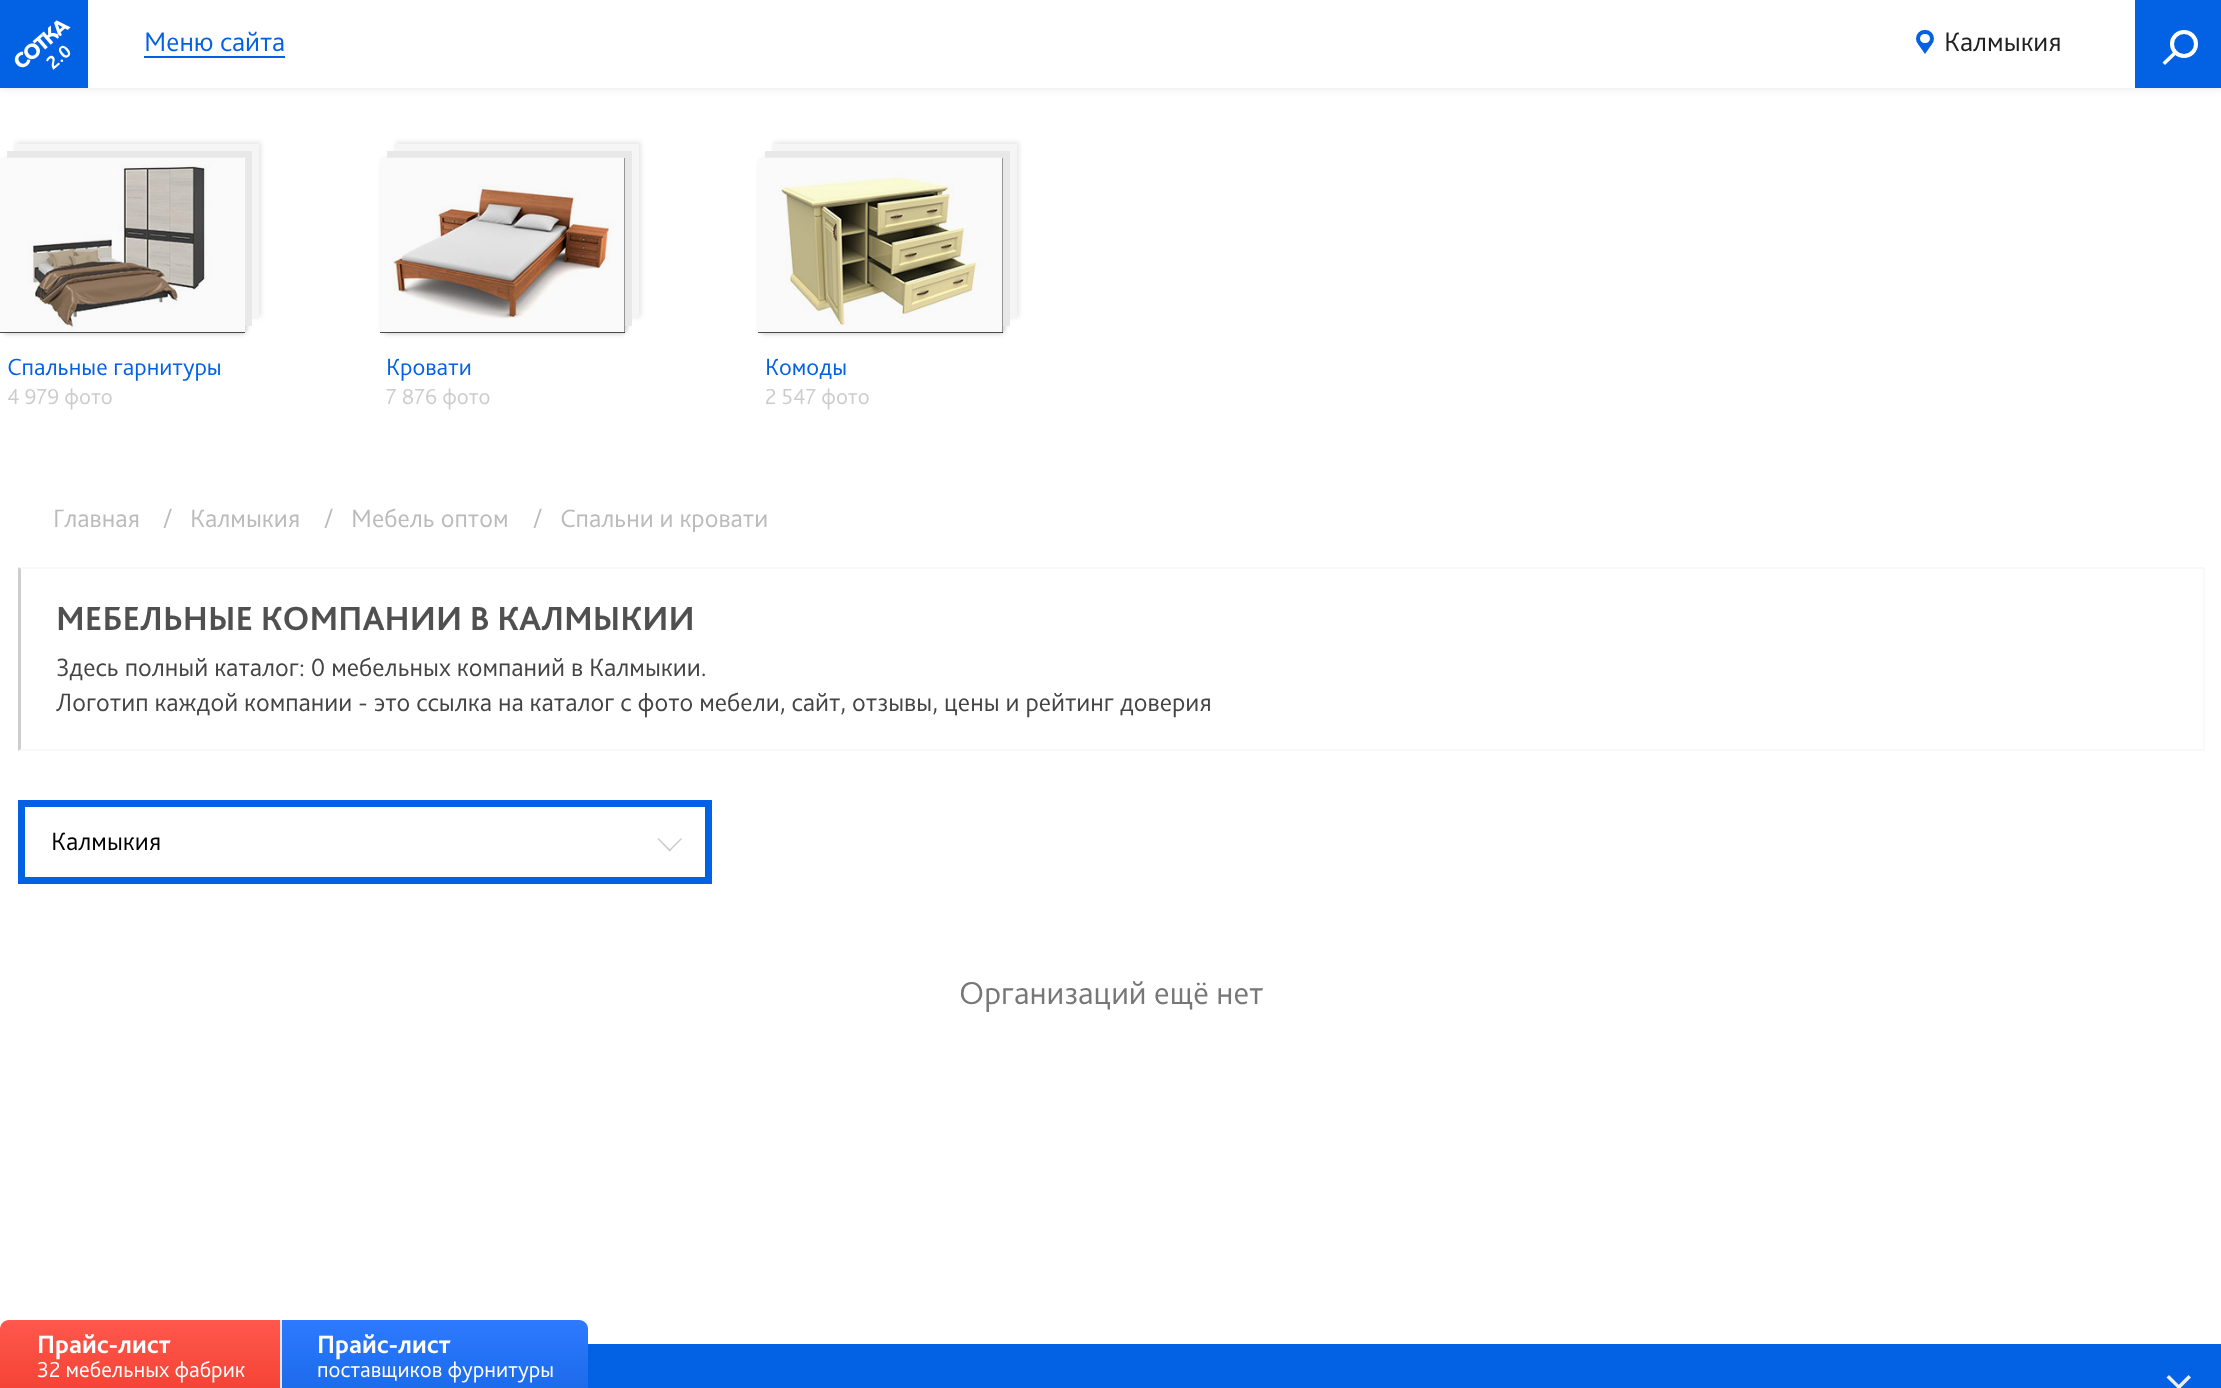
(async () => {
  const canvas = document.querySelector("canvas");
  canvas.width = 2221;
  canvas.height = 1388;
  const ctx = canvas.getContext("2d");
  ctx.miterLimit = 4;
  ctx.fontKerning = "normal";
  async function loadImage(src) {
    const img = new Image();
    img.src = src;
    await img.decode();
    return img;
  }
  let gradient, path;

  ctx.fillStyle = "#ffffff";
  ctx.fillRect(0, 0, 2221, 1388);
  ctx.fillStyle = "rgba(0, 0, 0, 0.1)";
  ctx.filter = "blur(4.5px)";
  ctx.beginPath();
  ctx.rect(0, 0, 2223, 88);
  ctx.fill();
  ctx.filter = "none";
  ctx.fillStyle = "#ffffff";
  ctx.fillRect(88, 0, 2047, 88);
  ctx.fillStyle = "#0361e3";
  ctx.fillRect(144, 56, 141, 2);
  ctx.beginPath();
  ctx.roundRect(1918, 32, 14, 13, 6.5);
  ctx.strokeStyle = "#0361e3";
  ctx.lineWidth = 4;
  ctx.stroke();
  path = new Path2D("M1925 44V54L1918 44ZM1925 54V44H1932Z");
  ctx.fill(path);
  ctx.fillRect(2135, 0, 86, 88);
  ctx.fillStyle = "#ffffff";
  path = new Path2D("M2175 50.5L2177.5 53L2165 65L2162.5 62.5Z");
  ctx.fill(path);
  ctx.beginPath();
  ctx.arc(2184, 44, 12, 0, Math.PI * 2);
  ctx.strokeStyle = "#ffffff";
  ctx.stroke();
  ctx.fillStyle = "#0361e3";
  ctx.fillRect(0, 0, 88, 88);
  ctx.drawImage(await loadImage("img/1.png"), 14, 20, 57, 48);
  ctx.fillStyle = "rgba(0, 0, 0, 0.2)";
  ctx.filter = "blur(2px)";
  ctx.beginPath();
  ctx.roundRect(2, 159, 245, 175, 5);
  ctx.fill();
  ctx.filter = "none";
  ctx.fillStyle = "rgba(0, 0, 0, 0.1)";
  ctx.filter = "blur(2.5px)";
  ctx.beginPath();
  ctx.rect(16, 142, 245, 175);
  ctx.fill();
  ctx.filter = "none";
  for (const [x, y, w, h, color] of [
    [14, 144, 245, 175, "#f5f5f5"],
    [7, 151, 245, 175, "#e8e8e8"],
    [0, 158, 245, 175, "#111111"],
  ]) {
    ctx.fillStyle = color;
    ctx.fillRect(x, y, w, h);
  }
  ctx.drawImage(await loadImage("img/2.png"), 0, 157, 245, 176);
  ctx.fillStyle = "rgba(0, 0, 0, 0.2)";
  ctx.filter = "blur(2px)";
  ctx.beginPath();
  ctx.roundRect(382, 159, 245, 175, 5);
  ctx.fill();
  ctx.filter = "none";
  ctx.fillStyle = "rgba(0, 0, 0, 0.1)";
  ctx.filter = "blur(2.5px)";
  ctx.beginPath();
  ctx.rect(396, 142, 245, 175);
  ctx.fill();
  ctx.filter = "none";
  for (const [x, y, w, h, color] of [
    [394, 144, 245, 175, "#f5f5f5"],
    [387, 151, 245, 175, "#e8e8e8"],
    [380, 158, 245, 175, "#111111"],
  ]) {
    ctx.fillStyle = color;
    ctx.fillRect(x, y, w, h);
  }
  ctx.drawImage(await loadImage("img/3.png"), 380, 157, 245, 176);
  ctx.fillStyle = "rgba(0, 0, 0, 0.2)";
  ctx.filter = "blur(2px)";
  ctx.beginPath();
  ctx.roundRect(760, 159, 245, 175, 5);
  ctx.fill();
  ctx.filter = "none";
  ctx.fillStyle = "rgba(0, 0, 0, 0.1)";
  ctx.filter = "blur(2.5px)";
  ctx.beginPath();
  ctx.rect(774, 142, 245, 175);
  ctx.fill();
  ctx.filter = "none";
  for (const [x, y, w, h, color] of [
    [772, 144, 245, 175, "#f5f5f5"],
    [765, 151, 245, 175, "#e8e8e8"],
    [758, 158, 245, 175, "#111111"],
  ]) {
    ctx.fillStyle = color;
    ctx.fillRect(x, y, w, h);
  }
  ctx.drawImage(await loadImage("img/4.png"), 758, 157, 245, 176);
  ctx.fillStyle = "#f9f9f9";
  path = new Path2D("M18 567H2205L2203 569H21Z");
  ctx.fill(path);
  ctx.fillRect(2203, 567, 2, 184);
  path = new Path2D("M2205 751H18L21 749H2203Z");
  ctx.fill(path);
  ctx.fillStyle = "#cecece";
  path = new Path2D("M18 751V567L21 569V749Z");
  ctx.fill(path);
  ctx.strokeStyle = "#0361e3";
  ctx.lineWidth = 7;
  ctx.strokeRect(21.5, 803.5, 687, 77);
  ctx.fillStyle = "#cccccc";
  path = new Path2D("M681 838L682 839L669.5 851.5L668.5 850.5Z");
  ctx.fill(path);
  path = new Path2D("M658.5 838L671 850.5L669.5 851.5L657.5 839Z");
  ctx.fill(path);
  ctx.fillStyle = "#0361e3";
  ctx.fillRect(588, 1344, 1633, 44);
  ctx.fillStyle = "#eeeeee";
  path = new Path2D("M2176.5 1387L2188.5 1375L2191 1377.5L2179 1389.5Z");
  ctx.fill(path);
  path = new Path2D("M2166.5 1377.5L2169 1375L2181 1387L2179 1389.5Z");
  ctx.fill(path);
  gradient = ctx.createLinearGradient(141, 1320, 141, 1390);
  gradient.addColorStop(0, "#ff584c");
  gradient.addColorStop(1, "#f44336");
  ctx.fillStyle = gradient;
  path = new Path2D("M9 1320H280V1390H0V1329C0 1324 4 1320 9 1320Z");
  ctx.fill(path);
  gradient = ctx.createLinearGradient(435, 1320, 435, 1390);
  gradient.addColorStop(0, "#2d7aff");
  gradient.addColorStop(1, "#1c6beb");
  ctx.fillStyle = gradient;
  path = new Path2D("M280 1320H579C584 1320 588 1324 588 1329V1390H280Z");
  ctx.fill(path);
  ctx.fillStyle = "#e6e6e6";
  ctx.fillRect(280, 1320, 2, 68);
  ctx.font = "300 28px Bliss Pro";
  ctx.fillStyle = "#0361e3";
  ctx.fillText("Меню сайта", 144, 51);
  ctx.fillStyle = "#212121";
  ctx.fillText("Калмыкия", 1944, 51);
  ctx.font = "bold 19px Bliss Pro";
  ctx.fillStyle = "#ffffff";
  ctx.save();
  ctx.translate(53, 70);
  ctx.rotate(-41 * Math.PI / 180);
  ctx.fillText("2.0", 0, 0);
  ctx.restore();
  ctx.font = "300 24.5px Bliss Pro";
  ctx.fillStyle = "#0361e3";
  ctx.fillText("Спальные гарнитуры", 7, 375);
  ctx.font = "300 22.75px Bliss Pro";
  ctx.fillStyle = "#cccccc";
  ctx.fillText("4 979 фото", 7, 404);
  ctx.font = "300 24.5px Bliss Pro";
  ctx.fillStyle = "#0361e3";
  ctx.fillText("Кровати", 386, 375);
  ctx.font = "300 22.75px Bliss Pro";
  ctx.fillStyle = "#cccccc";
  ctx.fillText("7 876 фото", 386, 404);
  ctx.font = "300 24.5px Bliss Pro";
  ctx.fillStyle = "#0361e3";
  ctx.fillText("Комоды", 765, 375);
  ctx.font = "300 22.75px Bliss Pro";
  ctx.fillStyle = "#cccccc";
  ctx.fillText("2 547 фото", 765, 404);
  ctx.font = "300 26.25px Bliss Pro";
  ctx.fillStyle = "#bbbbbb";
  for (const [text, x, y] of [
    ["Главная", 53, 527],
    ["/   Калмыкия", 163, 527],
    ["/   Мебель оптом", 324, 527],
  ]) {
    ctx.fillText(text, x, y);
  }
  ctx.save();
  ctx.beginPath();
  ctx.rect(53, 504, 715, 28);
  ctx.clip();
  ctx.fillText("/   Спальни и кровати", 533, 527);
  ctx.restore();
  ctx.font = "bold 35px Bliss Pro";
  ctx.fillStyle = "#505050";
  ctx.fillText("МЕБЕЛЬНЫЕ КОМПАНИИ В КАЛМЫКИИ", 56, 630);
  ctx.font = "300 26.25px Bliss Pro";
  ctx.fillStyle = "#444444";
  ctx.fillText("Здесь полный каталог: 0 мебельных компаний в Калмыкии.", 56, 676);
  ctx.fillText("Логотип каждой компании - это ссылка на каталог с фото мебели, сайт, отзывы, цены и рейтинг доверия", 56, 711);
  ctx.fillStyle = "#000000";
  ctx.fillText("Калмыкия", 51, 850);
  ctx.font = "300 33.25px Bliss Pro";
  ctx.fillStyle = "#777777";
  ctx.fillText("Организаций ещё нет", 959, 1004);
  ctx.font = "bold 26.25px Bliss Pro";
  ctx.fillStyle = "#ffffff";
  ctx.fillText("Прайс-лист", 37, 1353);
  ctx.font = "300 22.75px Bliss Pro";
  ctx.fillText("32 мебельных фабрик", 37, 1377);
  ctx.font = "bold 26.25px Bliss Pro";
  ctx.fillText("Прайс-лист", 317, 1353);
  ctx.font = "300 22.75px Bliss Pro";
  ctx.fillText("поставщиков фурнитуры", 317, 1377);
})();
